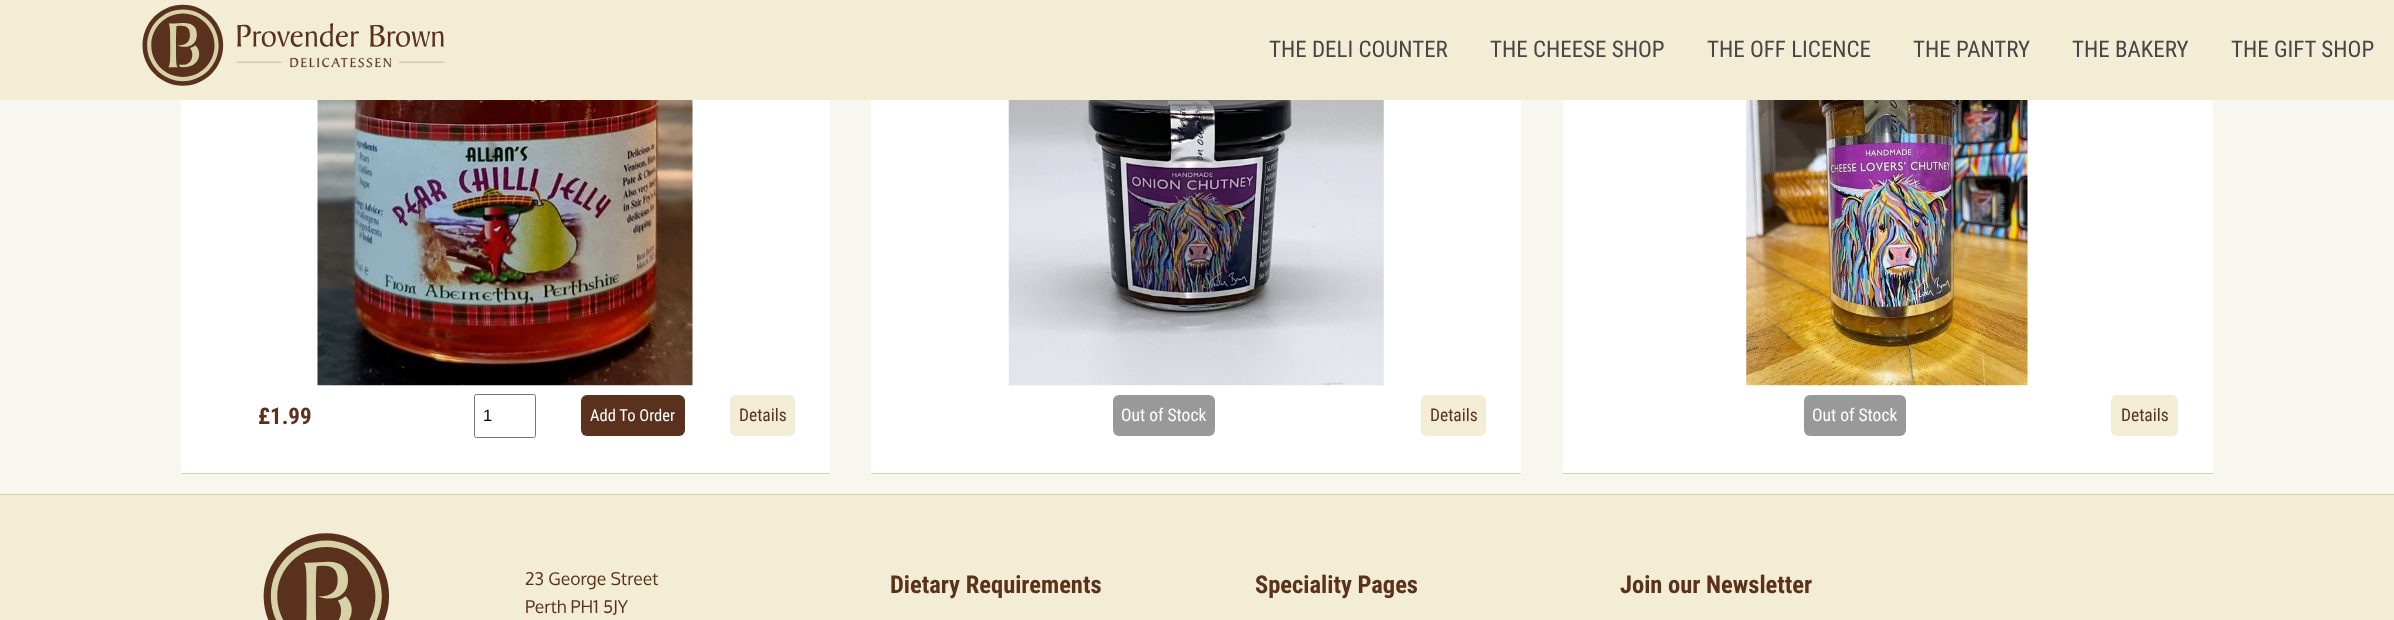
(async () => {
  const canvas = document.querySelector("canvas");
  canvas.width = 2394;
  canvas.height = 620;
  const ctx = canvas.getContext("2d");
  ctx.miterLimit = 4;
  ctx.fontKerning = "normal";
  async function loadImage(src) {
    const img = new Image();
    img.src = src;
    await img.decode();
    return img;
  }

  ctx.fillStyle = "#f7f7ef";
  ctx.fillRect(0, 0, 2394, 620);
  ctx.fillStyle = "#f2edd4";
  ctx.fillRect(0, 0, 2394, 100);
  ctx.drawImage(await loadImage("img/1.png"), 142, 4, 303, 82);
  ctx.fillStyle = "#ffffff";
  ctx.fillRect(181, 100, 649, 373);
  ctx.fillStyle = "#d7d2a7";
  ctx.fillRect(181, 473, 649, 1);
  ctx.drawImage(await loadImage("img/2.png"), 317, 100, 376, 286);
  ctx.beginPath();
  ctx.roundRect(474.5, 394.5, 61, 43, 2);
  ctx.strokeStyle = "#767676";
  ctx.stroke();
  ctx.fillStyle = "#5a311d";
  ctx.beginPath();
  ctx.roundRect(581, 395, 104, 41, 6);
  ctx.fill();
  ctx.fillStyle = "#f2edd4";
  ctx.beginPath();
  ctx.roundRect(730, 395, 65, 41, 6);
  ctx.fill();
  ctx.fillStyle = "#ffffff";
  ctx.fillRect(871, 100, 650, 373);
  ctx.fillStyle = "#d7d2a7";
  ctx.fillRect(871, 473, 650, 1);
  ctx.drawImage(await loadImage("img/3.png"), 1008, 100, 376, 286);
  ctx.fillStyle = "#999999";
  ctx.beginPath();
  ctx.roundRect(1113, 395, 102, 41, 6);
  ctx.fill();
  ctx.fillStyle = "#f2edd4";
  ctx.beginPath();
  ctx.roundRect(1421, 395, 65, 41, 6);
  ctx.fill();
  ctx.fillStyle = "#ffffff";
  ctx.fillRect(1563, 100, 650, 373);
  ctx.fillStyle = "#d7d2a7";
  ctx.fillRect(1563, 473, 650, 1);
  ctx.drawImage(await loadImage("img/4.png"), 1746, 100, 282, 286);
  ctx.fillStyle = "#999999";
  ctx.beginPath();
  ctx.roundRect(1804, 395, 102, 41, 6);
  ctx.fill();
  ctx.fillStyle = "#f2edd4";
  ctx.beginPath();
  ctx.roundRect(2111, 395, 67, 41, 6);
  ctx.fill();
  ctx.fillRect(0, 495, 2394, 125);
  ctx.fillStyle = "#d7d2a7";
  ctx.fillRect(0, 494, 2394, 1);
  ctx.drawImage(await loadImage("img/5.png"), 263, 533, 127, 87);
  ctx.font = "23px Roboto Condensed";
  ctx.fillStyle = "#464646";
  for (const [text, x, y] of [
    ["THE DELI COUNTER", 1269, 57],
    ["THE CHEESE SHOP", 1490, 57],
    ["THE OFF LICENCE", 1707, 57],
    ["THE PANTRY", 1913, 57],
    ["THE BAKERY", 2072, 57],
    ["THE GIFT SHOP", 2231, 57],
  ]) {
    ctx.fillText(text, x, y);
  }
  ctx.font = "bold 23px Roboto Condensed";
  ctx.fillStyle = "#5a311d";
  ctx.fillText("£1.99", 258, 424);
  ctx.font = "16.5px Liberation Sans";
  ctx.fillStyle = "#000000";
  ctx.fillText("1", 483, 421);
  ctx.font = "16.5px Roboto Condensed";
  ctx.fillStyle = "#ffffff";
  ctx.fillText("Add To Order", 590, 421);
  ctx.font = "17.5px Roboto Condensed";
  ctx.fillStyle = "#5a311d";
  ctx.fillText("Details", 739, 421);
  ctx.fillStyle = "#ffffff";
  ctx.fillText("Out of Stock", 1121, 421);
  ctx.fillStyle = "#5a311d";
  ctx.fillText("Details", 1430, 421);
  ctx.fillStyle = "#ffffff";
  ctx.fillText("Out of Stock", 1812, 421);
  ctx.fillStyle = "#5a311d";
  ctx.fillText("Details", 2121, 421);
  ctx.font = "17.5px Oxygen";
  ctx.fillText("23 George Street", 525, 585);
  ctx.fillText("Perth PH1 5JY", 525, 613);
  ctx.font = "bold 24.5px Roboto Condensed";
  for (const [text, x, y] of [
    ["Dietary Requirements", 890, 593],
    ["Speciality Pages", 1255, 593],
    ["Join our Newsletter", 1620, 593],
  ]) {
    ctx.fillText(text, x, y);
  }
})();
